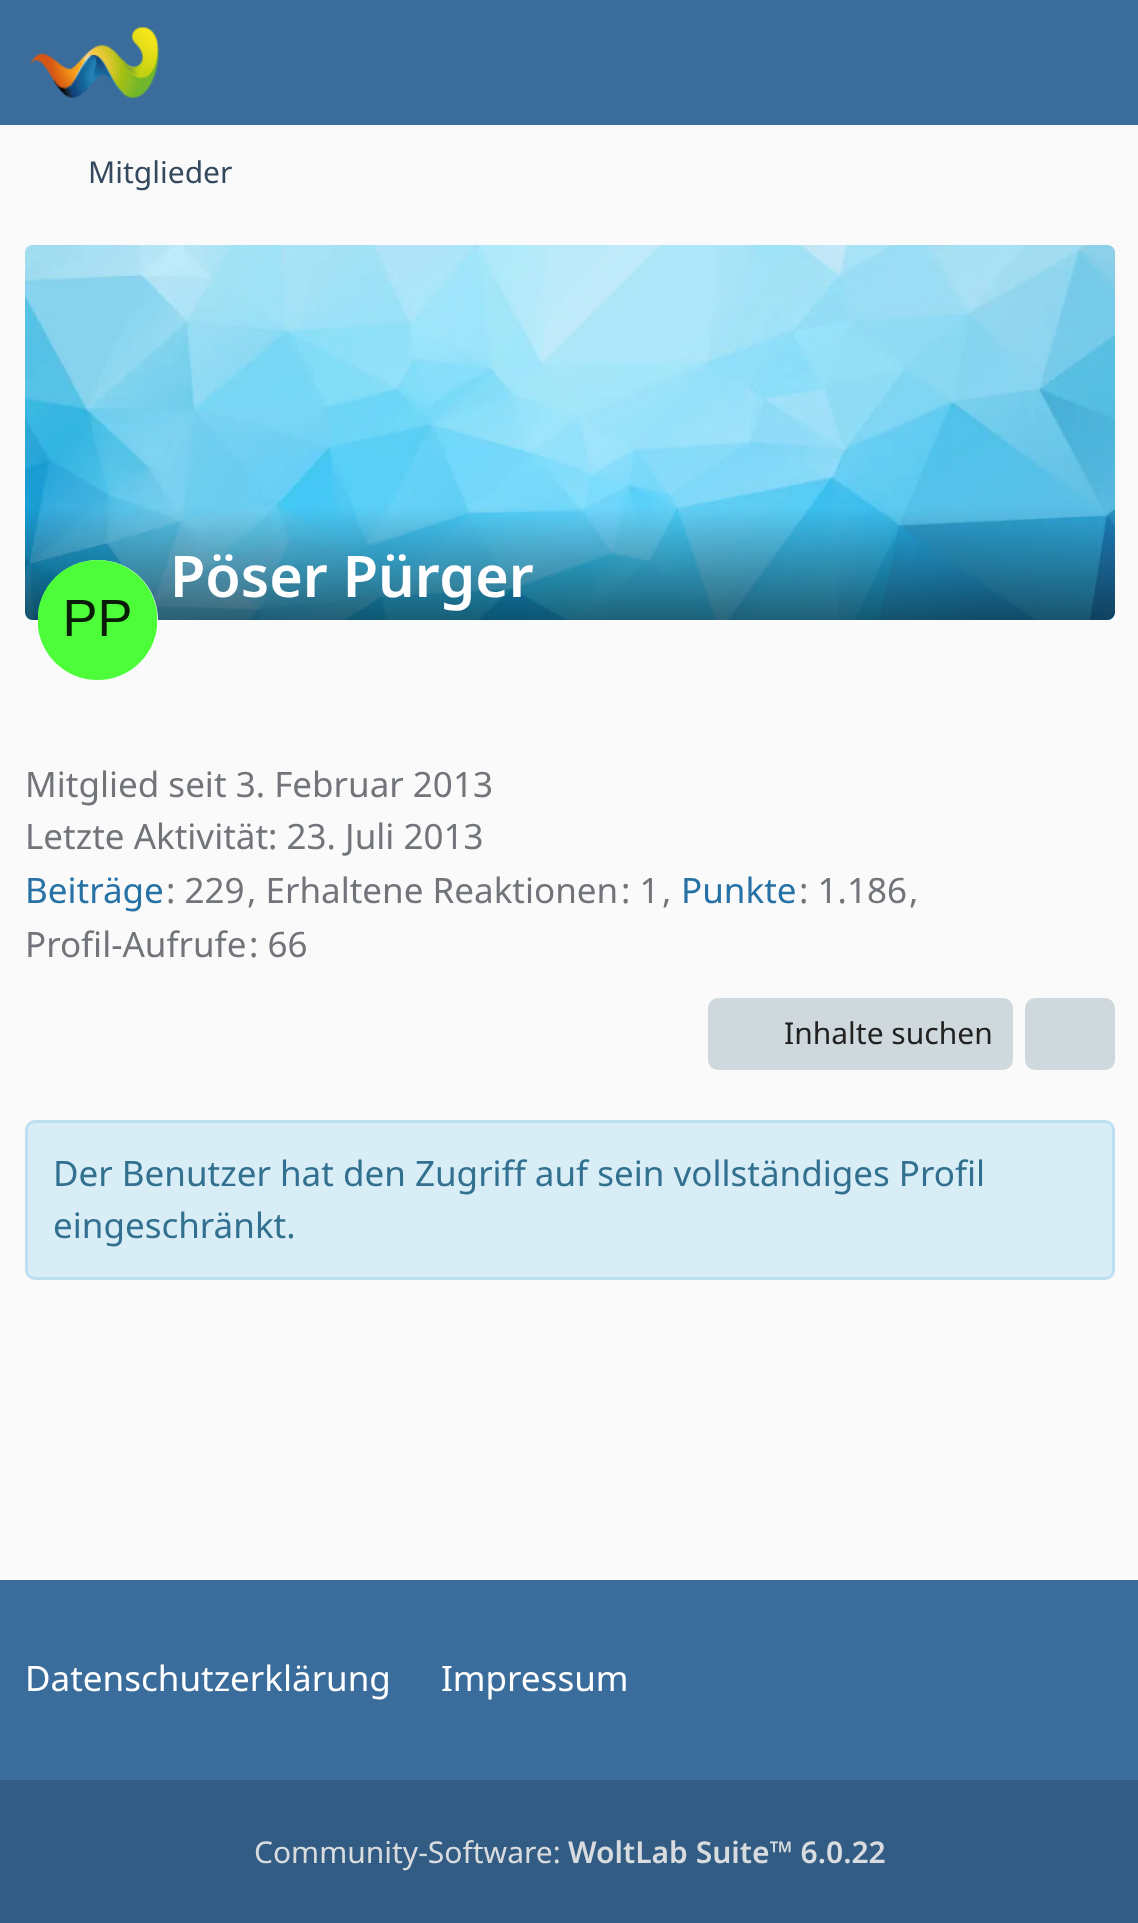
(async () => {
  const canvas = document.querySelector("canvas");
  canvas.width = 1138;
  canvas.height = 1923;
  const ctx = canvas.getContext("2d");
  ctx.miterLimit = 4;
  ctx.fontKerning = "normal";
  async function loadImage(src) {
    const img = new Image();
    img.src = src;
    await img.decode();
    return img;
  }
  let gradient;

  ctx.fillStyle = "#fafafa";
  ctx.fillRect(0, 0, 1138, 1923);
  ctx.fillStyle = "#3a6d9c";
  ctx.fillRect(0, 0, 1138, 125);
  ctx.drawImage(await loadImage("img/1.png"), 30, 26, 129, 72);
  ctx.drawImage(await loadImage("img/2.png"), 25, 245, 1090, 375);
  gradient = ctx.createLinearGradient(570, 245, 570, 620);
  gradient.addColorStop(0.7, "rgba(0, 0, 0, 0)");
  gradient.addColorStop(1, "rgba(0, 0, 0, 0.5)");
  ctx.fillStyle = gradient;
  ctx.beginPath();
  ctx.roundRect(25, 245, 1090, 375, [0, 0, 8, 8]);
  ctx.fill();
  ctx.fillStyle = "#ffffff";
  ctx.beginPath();
  ctx.arc(98, 620, 60, 0, Math.PI * 2);
  ctx.fill();
  ctx.drawImage(await loadImage("img/3.png"), 38, 560, 120, 120);
  ctx.fillStyle = "#cfd8dc";
  ctx.beginPath();
  ctx.roundRect(708, 998, 305, 72, 10);
  ctx.fill();
  ctx.beginPath();
  ctx.roundRect(1025, 998, 90, 72, 10);
  ctx.fill();
  ctx.fillStyle = "#d9edf7";
  ctx.beginPath();
  ctx.roundRect(26.5, 1121.5, 1087, 157, 8.5);
  ctx.fill();
  ctx.strokeStyle = "#bcdff1";
  ctx.lineWidth = 3;
  ctx.stroke();
  ctx.fillStyle = "#3a6d9c";
  ctx.fillRect(0, 1580, 1138, 200);
  ctx.fillStyle = "#325c84";
  ctx.fillRect(0, 1780, 1138, 143);
  ctx.font = "30px Noto Sans";
  ctx.fillStyle = "#34495e";
  ctx.fillText("Mitglieder", 88, 183);
  ctx.font = "600 57.5px Noto Sans";
  ctx.fillStyle = "#ffffff";
  ctx.fillText("Pöser Pürger", 170, 597);
  ctx.font = "35px Noto Sans";
  ctx.fillStyle = "#71757a";
  ctx.fillText("Mitglied seit 3. Februar 2013", 25, 797);
  ctx.fillText("Letzte Aktivität: 23. Juli 2013", 25, 849);
  ctx.fillStyle = "#2671a6";
  ctx.fillText("Beiträge", 25, 903);
  ctx.fillStyle = "#71757a";
  for (const [text, x, y] of [
    [": 229", 166, 903],
    [", Erhaltene Reaktionen", 247, 903],
    [": 1", 621, 903],
    [",", 662, 903],
  ]) {
    ctx.fillText(text, x, y);
  }
  ctx.fillStyle = "#2671a6";
  ctx.fillText("Punkte", 681, 903);
  ctx.fillStyle = "#71757a";
  for (const [text, x, y] of [
    [": 1.186", 799, 903],
    [",", 909, 903],
    ["Profil-Aufrufe", 25, 957],
    [": 66", 249, 957],
  ]) {
    ctx.fillText(text, x, y);
  }
  ctx.font = "30px Noto Sans";
  ctx.fillStyle = "#212121";
  ctx.fillText("Inhalte suchen", 784, 1044);
  ctx.font = "35px Noto Sans";
  ctx.fillStyle = "#31708f";
  ctx.fillText("Der Benutzer hat den Zugriff auf sein vollständiges Profil", 53, 1186);
  ctx.fillText("eingeschränkt.", 53, 1238);
  ctx.fillStyle = "#ffffff";
  ctx.fillText("Datenschutzerklärung", 25, 1691);
  ctx.fillText("Impressum", 441, 1691);
  ctx.font = "30px Noto Sans";
  ctx.fillStyle = "#d9dcde";
  ctx.fillText("Community-Software:", 254, 1863);
  ctx.font = "600 30px Noto Sans";
  ctx.fillText("WoltLab Suite™ 6.0.22", 568, 1863);
})();
